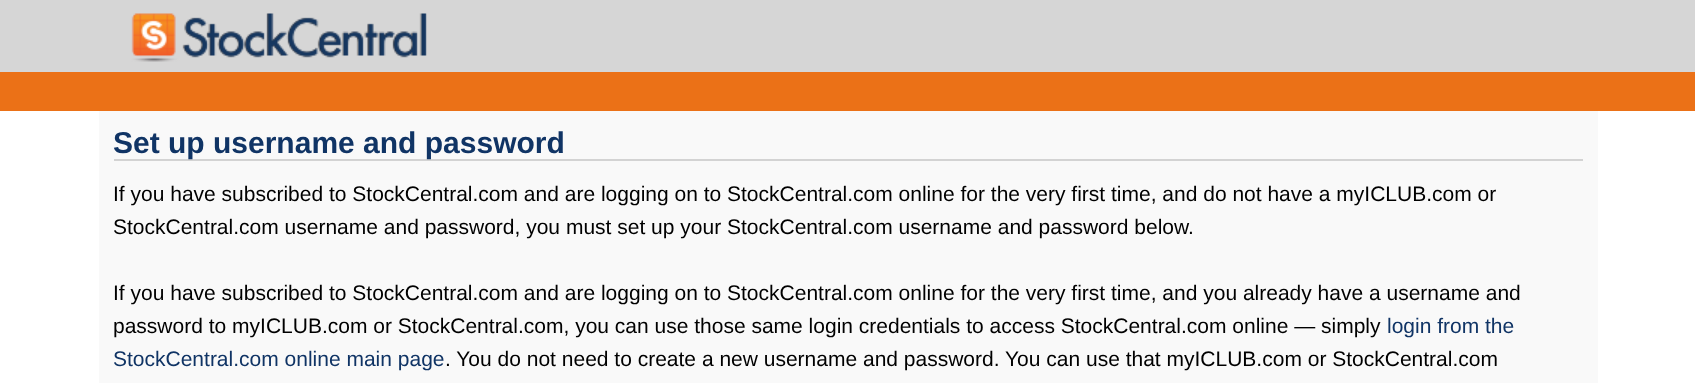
(async () => {
  const canvas = document.querySelector("canvas");
  canvas.width = 1695;
  canvas.height = 383;
  const ctx = canvas.getContext("2d");
  ctx.miterLimit = 4;
  ctx.fontKerning = "normal";
  async function loadImage(src) {
    const img = new Image();
    img.src = src;
    await img.decode();
    return img;
  }

  ctx.fillStyle = "#ffffff";
  ctx.fillRect(0, 0, 1695, 383);
  ctx.fillStyle = "#d6d6d6";
  ctx.fillRect(0, 0, 1695, 72);
  ctx.drawImage(await loadImage("img/1.png"), 131, 13, 296, 49);
  for (const [x, y, w, h, color] of [
    [0, 72, 1695, 39, "#eb7117"],
    [99, 111, 1499, 272, "#f9f9f9"],
    [114, 159, 1469, 2, "#d3d3d3"],
  ]) {
    ctx.fillStyle = color;
    ctx.fillRect(x, y, w, h);
  }
  ctx.font = "bold 30px Liberation Sans";
  ctx.fillStyle = "#103465";
  ctx.fillText("Set up username and password", 113, 153);
  ctx.font = "21px Liberation Sans";
  ctx.fillStyle = "#000000";
  for (const [text, x, y] of [
    ["If you have subscribed to StockCentral.com and are logging on to StockCentral.com online for the very first time, and do not have a myICLUB.com or", 113, 201],
    ["StockCentral.com username and password, you must set up your StockCentral.com username and password below.", 113, 234],
    ["If you have subscribed to StockCentral.com and are logging on to StockCentral.com online for the very first time, and you already have a username and", 113, 300],
    ["password to myICLUB.com or StockCentral.com, you can use those same login credentials to access StockCentral.com online — simply", 113, 333],
  ]) {
    ctx.fillText(text, x, y);
  }
  ctx.fillStyle = "#103465";
  ctx.fillText("login from the", 1387, 333);
  ctx.fillText("StockCentral.com online main page", 113, 366);
  ctx.fillStyle = "#000000";
  ctx.fillText(". You do not need to create a new username and password. You can use that myICLUB.com or StockCentral.com", 445, 366);
})();
